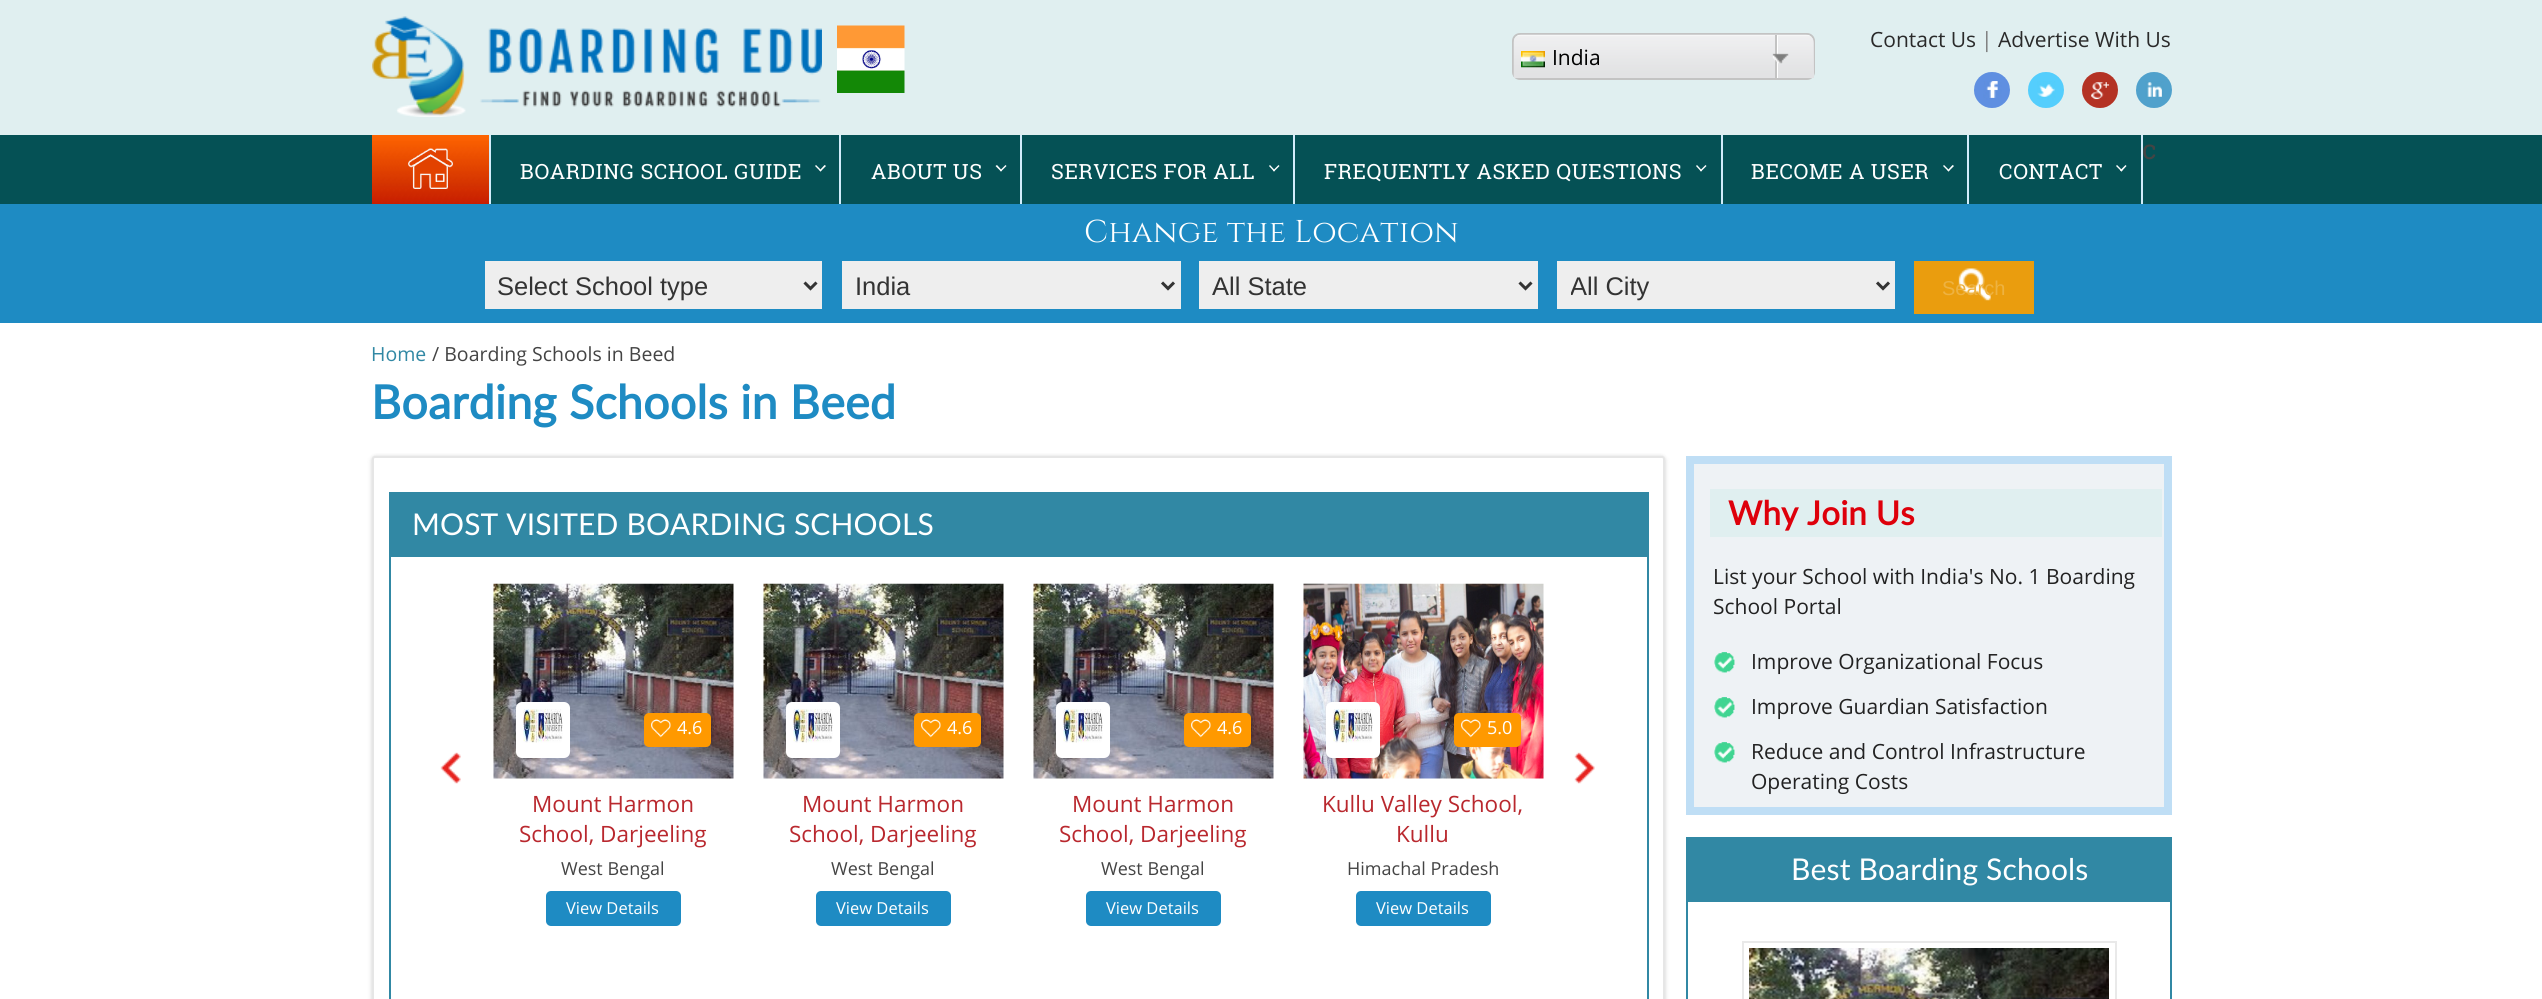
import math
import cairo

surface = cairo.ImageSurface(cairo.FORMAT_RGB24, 2542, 999)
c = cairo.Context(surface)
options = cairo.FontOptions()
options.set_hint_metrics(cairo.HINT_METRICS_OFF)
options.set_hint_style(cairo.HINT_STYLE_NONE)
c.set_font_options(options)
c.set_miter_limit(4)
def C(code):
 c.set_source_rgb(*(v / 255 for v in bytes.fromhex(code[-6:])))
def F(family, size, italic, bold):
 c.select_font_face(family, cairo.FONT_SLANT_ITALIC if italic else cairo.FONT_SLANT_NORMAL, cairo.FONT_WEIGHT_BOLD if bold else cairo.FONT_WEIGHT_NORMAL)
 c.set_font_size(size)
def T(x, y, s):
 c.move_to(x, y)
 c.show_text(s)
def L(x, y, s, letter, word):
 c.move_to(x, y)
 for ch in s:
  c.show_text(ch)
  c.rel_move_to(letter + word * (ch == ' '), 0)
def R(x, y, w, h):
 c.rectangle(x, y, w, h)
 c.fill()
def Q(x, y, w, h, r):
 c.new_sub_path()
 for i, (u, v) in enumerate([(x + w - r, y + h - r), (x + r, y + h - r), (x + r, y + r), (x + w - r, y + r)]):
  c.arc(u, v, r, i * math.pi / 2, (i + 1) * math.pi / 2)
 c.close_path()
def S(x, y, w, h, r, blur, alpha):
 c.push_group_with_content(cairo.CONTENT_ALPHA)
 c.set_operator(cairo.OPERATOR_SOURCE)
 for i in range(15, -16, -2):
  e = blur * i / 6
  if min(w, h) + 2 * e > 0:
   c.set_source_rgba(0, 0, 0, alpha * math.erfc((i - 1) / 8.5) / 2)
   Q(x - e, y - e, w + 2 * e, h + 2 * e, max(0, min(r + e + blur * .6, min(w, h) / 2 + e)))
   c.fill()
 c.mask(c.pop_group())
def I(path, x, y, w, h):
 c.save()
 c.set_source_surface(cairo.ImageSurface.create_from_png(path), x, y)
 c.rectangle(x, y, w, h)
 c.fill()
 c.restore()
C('ffffff')
c.paint()
C('e0eff0')
R(0,0,2542,135)
I('1.png',372,16,450,101)
I('2.png',837,25,68,68)
F('Open Sans',21,0,0)
C('2a2a2a')
T(1870,47,'Contact Us')
C('7b7b7b')
T(1981,47,'|')
C('2a2a2a')
T(1998,47,'Advertise With Us')
I('3.png',1974,72,36,36)
I('4.png',2028,72,36,36)
I('5.png',2082,72,36,36)
I('6.png',2136,72,36,36)
Q(1513,34,301,45,7)
C('c3c3c3')
c.stroke()
C('e2e2e4')
c.new_path()
c.move_to(1522,35)
c.line_to(1806,35)
c.curve_to(1810.5,35,1814,38.5,1814,43)
c.line_to(1814,78)
c.line_to(1514,78)
c.line_to(1514,43)
c.curve_to(1514,38.5,1517.5,35,1522,35)
c.close_path()
c.fill()
I('7.png',1513,34,300,42)
I('8.png',1521,51,24,17)
C('000000')
T(1552,65,'India')
C('ffffff')
R(1777,35,1,43)
C('c3c3c3')
R(1775,35,2,43)
I('9.png',1772,53,17,11)
C('055155')
R(0,135,2542,69)
I('10.png',372,135,117,69)
C('d2ecfb')
R(489,135,2,69)
I('11.png',408,148,45,41)
F('Roboto Slab',27,0,0)
C('444444')
T(2142,159,'c')
C('d2ecfb')
R(839,135,2,69)
F('Roboto Slab',21,0,0)
C('ffffff')
L(520,179,'BOARDING SCHOOL GUIDE',.6,0)
c.new_path()
c.move_to(824.5,165)
c.line_to(826,166)
c.line_to(820.5,171.5)
c.line_to(819.5,170.5)
c.close_path()
c.fill()
c.new_path()
c.move_to(816,165)
c.line_to(821.5,170.5)
c.line_to(820.5,171.5)
c.line_to(815,166)
c.close_path()
c.fill()
C('d2ecfb')
R(1020,135,2,69)
C('ffffff')
L(871,179,'ABOUT US',.6,0)
c.new_path()
c.move_to(1005.5,165)
c.line_to(1006.5,166)
c.line_to(1001,171.5)
c.line_to(1000,170.5)
c.close_path()
c.fill()
c.new_path()
c.move_to(997,165)
c.line_to(1002,170.5)
c.line_to(1001,171.5)
c.line_to(995.5,166)
c.close_path()
c.fill()
C('d2ecfb')
R(1293,135,2,69)
C('ffffff')
L(1051,179,'SERVICES FOR ALL',.6,0)
c.new_path()
c.move_to(1278.5,165)
c.line_to(1279.5,166)
c.line_to(1274,171.5)
c.line_to(1273,170.5)
c.close_path()
c.fill()
c.new_path()
c.move_to(1270,165)
c.line_to(1275,170.5)
c.line_to(1274,171.5)
c.line_to(1269,166)
c.close_path()
c.fill()
C('d2ecfb')
R(1721,135,2,69)
C('ffffff')
L(1324,179,'FREQUENTLY ASKED QUESTIONS',.6,0)
c.new_path()
c.move_to(1705.5,165)
c.line_to(1706.5,166)
c.line_to(1701,171.5)
c.line_to(1700,170.5)
c.close_path()
c.fill()
c.new_path()
c.move_to(1697,165)
c.line_to(1702,170.5)
c.line_to(1701,171.5)
c.line_to(1696,166)
c.close_path()
c.fill()
C('d2ecfb')
R(1967,135,2,69)
C('ffffff')
L(1751,179,'BECOME A USER',.6,0)
c.new_path()
c.move_to(1952.5,165)
c.line_to(1954,166)
c.line_to(1948.5,171.5)
c.line_to(1947.5,170.5)
c.close_path()
c.fill()
c.new_path()
c.move_to(1944,165)
c.line_to(1949.5,170.5)
c.line_to(1948.5,171.5)
c.line_to(1943,166)
c.close_path()
c.fill()
C('d2ecfb')
R(2141,135,2,69)
C('ffffff')
L(1999,179,'CONTACT',.6,0)
c.new_path()
c.move_to(2125.5,165)
c.line_to(2126.5,166)
c.line_to(2121.5,171.5)
c.line_to(2120,170.5)
c.close_path()
c.fill()
c.new_path()
c.move_to(2117,165)
c.line_to(2122.5,170.5)
c.line_to(2121.5,171.5)
c.line_to(2116,166)
c.close_path()
c.fill()
C('1e8bc3')
R(0,204,2542,119)
F('Cinzel',31.5,0,0)
C('ffffff')
L(1084,242,'Change the Location',.2,0)
C('eeeeee')
R(485,261,337,48)
c.new_path()
c.move_to(804.5,282.5)
c.line_to(810.5,288.5)
c.line_to(816.5,282.5)
C('333333')
c.set_line_width(3)
c.stroke()
F('Liberation Sans',25.5,0,0)
T(497,295,'Select School type')
C('eeeeee')
R(842,261,339,48)
c.new_path()
c.move_to(1162,282.5)
c.line_to(1168,288.5)
c.line_to(1174,282.5)
C('333333')
c.stroke()
T(855,295,'India')
C('eeeeee')
R(1199,261,339,48)
c.new_path()
c.move_to(1519.5,282.5)
c.line_to(1525.5,288.5)
c.line_to(1531.5,282.5)
C('333333')
c.stroke()
T(1212,295,'All State')
C('eeeeee')
R(1557,261,338,48)
c.new_path()
c.move_to(1877,282.5)
c.line_to(1883,288.5)
c.line_to(1889,282.5)
C('333333')
c.stroke()
c.save()
c.rectangle(1571,272,300,31)
c.clip()
T(1570,295,'All City')
c.restore()
C('ea9d0e')
R(1914,261,120,53)
I('12.png',1958,268,33,33)
F('Liberation Sans',20,0,0)
C('eeb241')
T(1942,295,'Search')
F('Open Sans',19.5,0,0)
C('3188a4')
T(371,361,'Home')
C('444444')
T(432,361,'/ Boarding Schools in Beed')
F('Lato',46.5,0,1)
C('1e8bc3')
L(371,419,'Boarding Schools in Beed',.25,0)
C('000000')
S(372,456,1293,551,3,1.5,.1)
S(372,458,1293,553,3,3,.1)
C('ffffff')
Q(373,457,1291,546,2)
c.fill_preserve()
C('e6e6e6')
c.set_line_width(2)
c.stroke()
c.rectangle(390,493,1258,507)
C('3188a4')
c.stroke()
R(391,494,1256,63)
F('Lato',30,0,0)
C('ffffff')
L(412,535,'MOST VISITED BOARDING SCHOOLS',.15,0)
I('13.png',440,752,21,32)
I('14.png',493,583,241,196)
Q(516,702,54,56,6)
c.fill()
I('15.png',523,709,40,34)
C('ff9900')
Q(644,713,67,34,5)
c.fill()
I('16.png',651,719,20,19)
F('Open Sans',18,0,0)
C('ffffff')
T(677,734,'4.6')
F('Open Sans',22.5,0,0)
C('b9282e')
T(532,812,'Mount Harmon')
T(519,842,'School, Darjeeling')
F('Open Sans',18,0,0)
C('444444')
T(561,875,'West Bengal')
C('1e8bc3')
Q(546,891,135,35,5)
c.fill()
F('Open Sans',16.5,0,0)
C('ffffff')
T(566,914,'View Details')
I('17.png',763,583,241,196)
Q(786,702,54,56,6)
c.fill()
I('15.png',793,709,40,34)
C('ff9900')
Q(914,713,67,34,5)
c.fill()
I('16.png',921,719,20,19)
F('Open Sans',18,0,0)
C('ffffff')
T(947,734,'4.6')
F('Open Sans',22.5,0,0)
C('b9282e')
T(802,812,'Mount Harmon')
T(789,842,'School, Darjeeling')
F('Open Sans',18,0,0)
C('444444')
T(831,875,'West Bengal')
C('1e8bc3')
Q(816,891,135,35,5)
c.fill()
F('Open Sans',16.5,0,0)
C('ffffff')
T(836,914,'View Details')
I('18.png',1033,583,241,196)
Q(1056,702,54,56,6)
c.fill()
I('15.png',1063,709,40,34)
C('ff9900')
Q(1184,713,67,34,5)
c.fill()
I('16.png',1191,719,20,19)
F('Open Sans',18,0,0)
C('ffffff')
T(1217,734,'4.6')
F('Open Sans',22.5,0,0)
C('b9282e')
T(1072,812,'Mount Harmon')
T(1059,842,'School, Darjeeling')
F('Open Sans',18,0,0)
C('444444')
T(1101,875,'West Bengal')
C('1e8bc3')
Q(1086,891,135,35,5)
c.fill()
F('Open Sans',16.5,0,0)
C('ffffff')
T(1106,914,'View Details')
I('19.png',1303,583,241,196)
Q(1326,702,54,56,6)
c.fill()
I('15.png',1333,709,40,34)
C('ff9900')
Q(1454,713,67,34,5)
c.fill()
I('16.png',1461,719,20,19)
F('Open Sans',18,0,0)
C('ffffff')
T(1487,734,'5.0')
F('Open Sans',22.5,0,0)
C('b9282e')
T(1322,812,'Kullu Valley School,')
T(1396,842,'Kullu')
F('Open Sans',18,0,0)
C('444444')
T(1347,875,'Himachal Pradesh')
C('1e8bc3')
Q(1356,891,135,35,5)
c.fill()
F('Open Sans',16.5,0,0)
C('ffffff')
T(1376,914,'View Details')
I('20.png',1574,752,21,32)
C('eef2f5')
c.rectangle(1690,460,478,351)
c.fill_preserve()
C('bfdef5')
c.set_line_width(8)
c.stroke()
C('e0eff0')
R(1710,489,452,48)
F('Lato',33,0,1)
C('de000b')
L(1728,525,'Why Join Us',.25,0)
F('Open Sans',21,0,0)
C('222222')
T(1713,584,'List your School with India\'s No. 1 Boarding')
T(1713,614,'School Portal')
I('21.png',1714,652,21,21)
T(1751,669,'Improve Organizational Focus')
I('21.png',1714,697,21,21)
T(1751,714,'Improve Guardian Satisfaction')
I('21.png',1714,742,21,21)
T(1751,759,'Reduce and Control Infrastructure')
T(1751,789,'Operating Costs')
c.rectangle(1687,838,484,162)
C('3188a4')
c.set_line_width(2)
c.stroke()
R(1688,839,482,63)
F('Lato',30,0,0)
C('ffffff')
L(1791,880,'Best Boarding Schools',.15,0)
c.rectangle(1743,942,373,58)
C('e9e9e9')
c.stroke()
I('22.png',1749,948,360,51)
surface.write_to_png('o.png')
